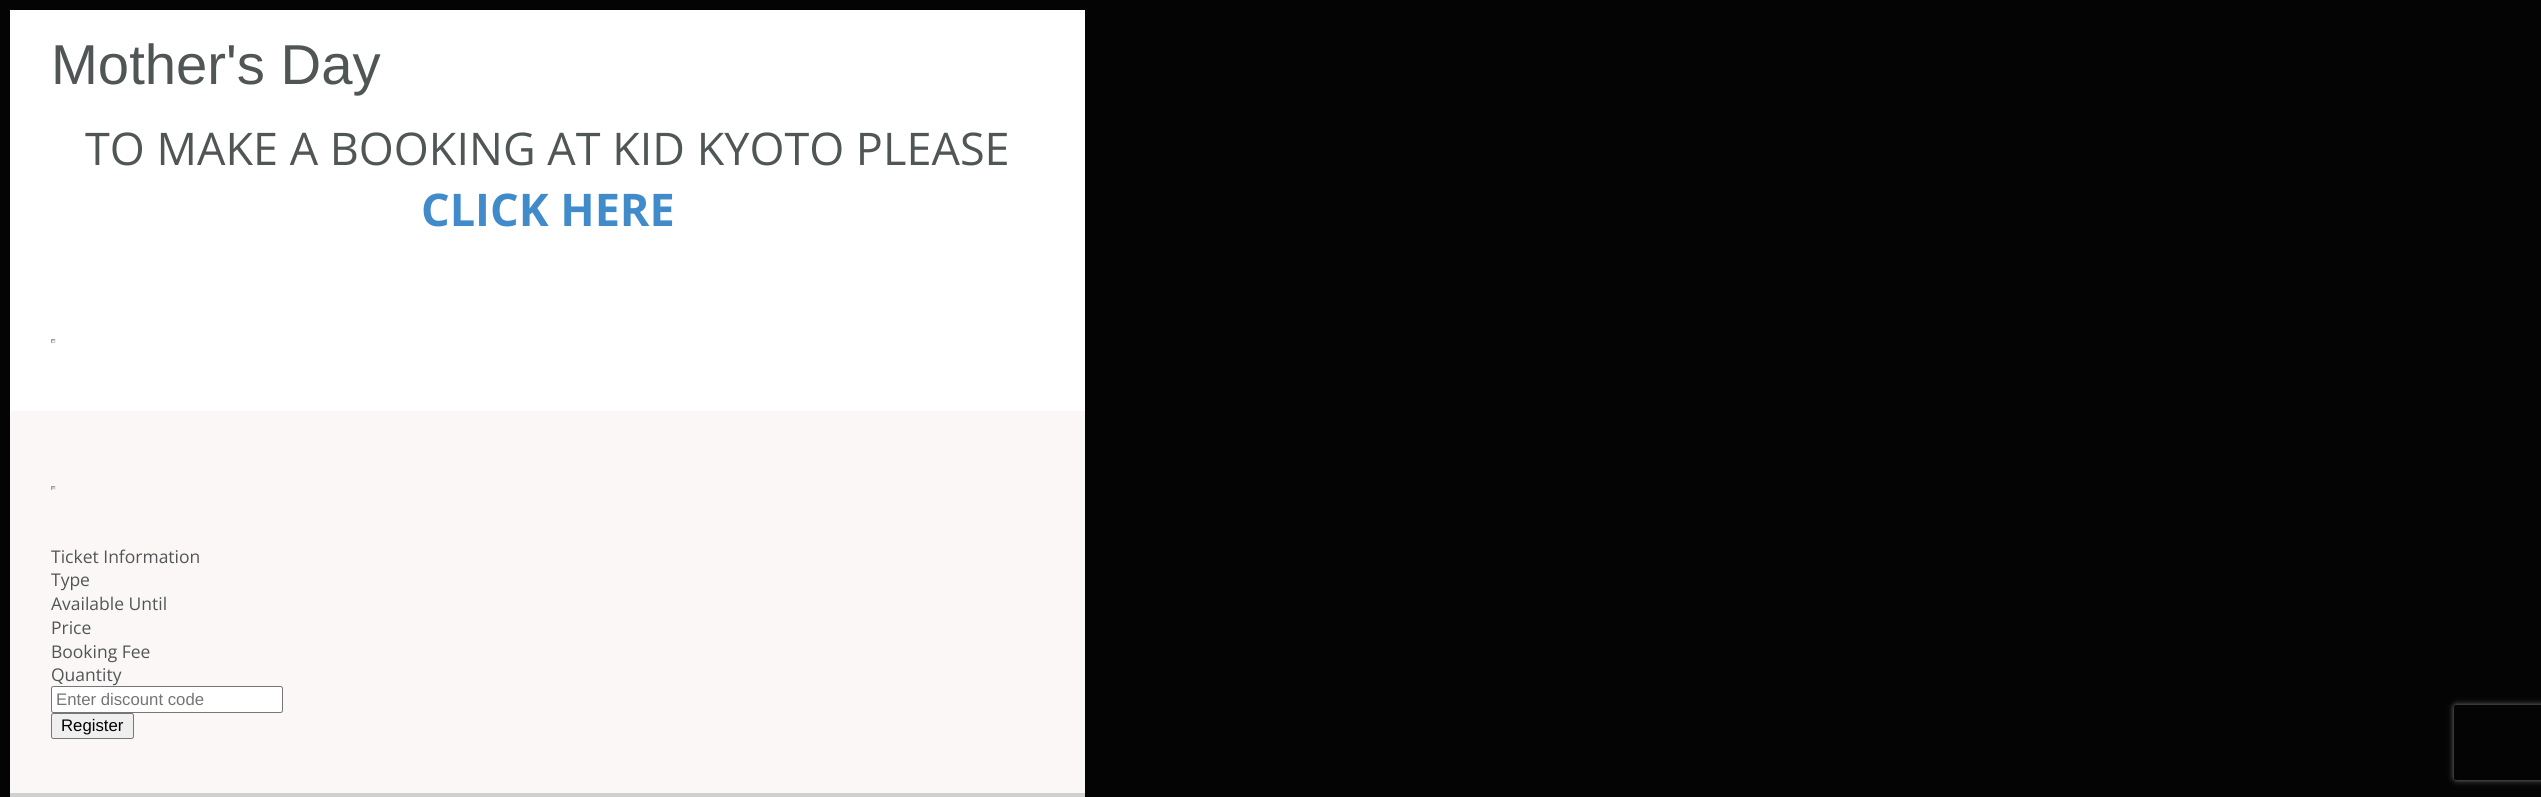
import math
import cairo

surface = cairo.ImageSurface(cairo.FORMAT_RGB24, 2541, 797)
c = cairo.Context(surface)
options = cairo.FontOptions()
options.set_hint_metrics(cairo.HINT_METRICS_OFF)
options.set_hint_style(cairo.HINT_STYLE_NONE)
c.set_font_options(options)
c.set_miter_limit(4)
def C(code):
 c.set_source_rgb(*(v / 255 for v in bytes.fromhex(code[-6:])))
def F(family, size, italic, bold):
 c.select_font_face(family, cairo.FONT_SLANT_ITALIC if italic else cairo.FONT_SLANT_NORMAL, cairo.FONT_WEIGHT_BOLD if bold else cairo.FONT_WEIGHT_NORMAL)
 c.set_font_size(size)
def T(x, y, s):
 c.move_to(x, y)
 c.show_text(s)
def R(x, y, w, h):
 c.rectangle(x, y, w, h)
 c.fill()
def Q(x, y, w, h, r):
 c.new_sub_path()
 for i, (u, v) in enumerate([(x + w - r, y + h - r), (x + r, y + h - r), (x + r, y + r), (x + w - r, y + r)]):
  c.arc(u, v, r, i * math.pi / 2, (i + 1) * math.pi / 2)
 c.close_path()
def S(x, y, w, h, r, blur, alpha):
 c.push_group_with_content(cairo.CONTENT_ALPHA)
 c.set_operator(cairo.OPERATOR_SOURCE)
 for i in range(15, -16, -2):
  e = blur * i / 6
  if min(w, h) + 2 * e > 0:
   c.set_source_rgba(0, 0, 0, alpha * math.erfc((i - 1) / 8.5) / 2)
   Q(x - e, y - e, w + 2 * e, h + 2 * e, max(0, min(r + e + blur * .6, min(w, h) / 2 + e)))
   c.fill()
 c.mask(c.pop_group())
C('040404')
c.paint()
C('ffffff')
R(10,10,1075,401)
F('Liberation Sans',56.25,0,0)
C('505656')
T(51,84,'Mother\'s Day')
F('Open Sans',45,0,0)
T(85,165,'TO MAKE A BOOKING AT KID KYOTO PLEASE')
F('Open Sans',45,0,1)
C('428bca')
T(421,226,'CLICK HERE')
C('cccccc')
R(51,340,5,3)
C('9f9f9f')
R(51,339,5,1)
C('eeeeee')
R(55,339,1,4)
R(51,341,5,1)
C('9f9f9f')
R(51,339,1,4)
C('fbf7f7')
R(10,411,1075,382)
C('cccccc')
R(51,487,5,2)
C('9f9f9f')
R(51,486,5,1)
C('eeeeee')
R(55,486,1,4)
R(51,489,5,1)
C('9f9f9f')
R(51,486,1,4)
F('Open Sans',17.5,0,0)
C('505656')
T(51,563,'Ticket Information')
T(51,586,'Type')
T(51,610,'Available Until')
T(51,634,'Price')
T(51,658,'Booking Fee')
T(51,681,'Quantity')
C('ffffff')
Q(51.5,686.5,231,26,2)
c.fill_preserve()
C('767676')
c.set_line_width(1)
c.stroke()
F('Liberation Sans',16.75,0,0)
C('757575')
T(56,705,'Enter discount code')
C('efefef')
Q(51.5,713.5,82,25,2)
c.fill_preserve()
C('767676')
c.stroke()
C('000000')
T(61,731,'Register')
C('d0d0d0')
R(10,793,1075,4)
c.save()
c.set_fill_rule(cairo.FILL_RULE_EVEN_ODD)
c.new_path()
c.move_to(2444,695)
c.line_to(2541,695)
c.line_to(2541,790)
c.line_to(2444,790)
c.close_path()
c.move_to(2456.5,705)
c.line_to(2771.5,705)
c.curve_to(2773,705,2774,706,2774,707.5)
c.line_to(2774,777.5)
c.curve_to(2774,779,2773,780,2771.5,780)
c.line_to(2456.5,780)
c.curve_to(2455,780,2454,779,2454,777.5)
c.line_to(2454,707.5)
c.curve_to(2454,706,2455,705,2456.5,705)
c.close_path()
c.clip()
C('808080')
S(2454,705,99,75,2.5,3,1)
c.restore()
surface.write_to_png('o.png')
